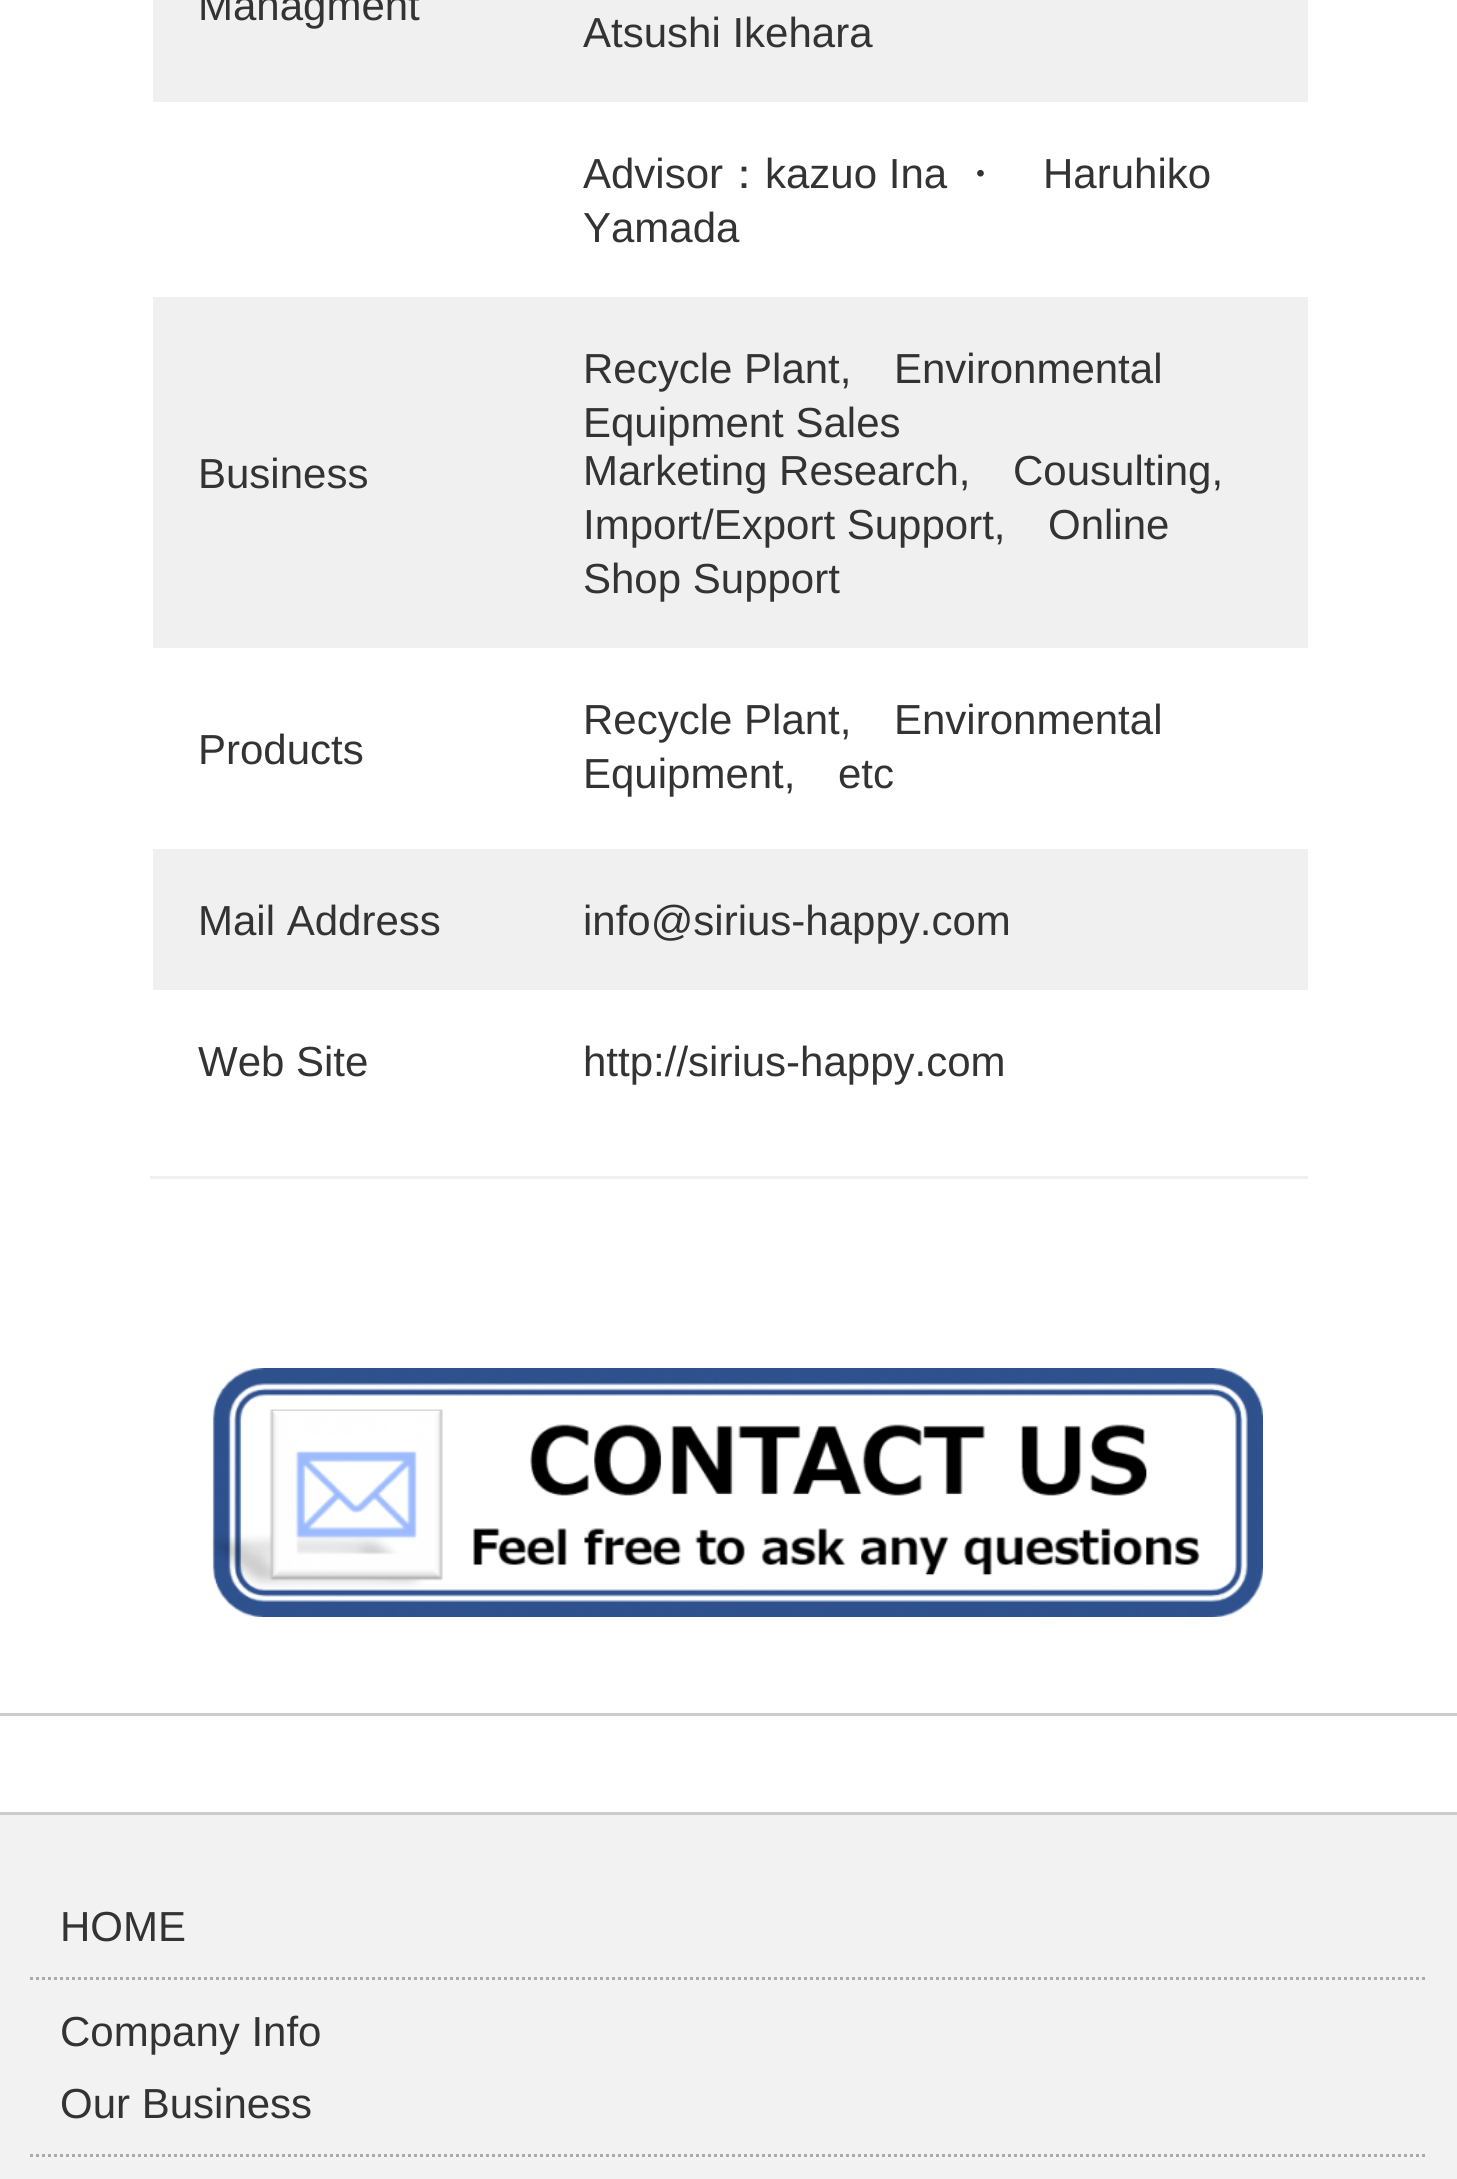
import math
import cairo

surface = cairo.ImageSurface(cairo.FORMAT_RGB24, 1457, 2179)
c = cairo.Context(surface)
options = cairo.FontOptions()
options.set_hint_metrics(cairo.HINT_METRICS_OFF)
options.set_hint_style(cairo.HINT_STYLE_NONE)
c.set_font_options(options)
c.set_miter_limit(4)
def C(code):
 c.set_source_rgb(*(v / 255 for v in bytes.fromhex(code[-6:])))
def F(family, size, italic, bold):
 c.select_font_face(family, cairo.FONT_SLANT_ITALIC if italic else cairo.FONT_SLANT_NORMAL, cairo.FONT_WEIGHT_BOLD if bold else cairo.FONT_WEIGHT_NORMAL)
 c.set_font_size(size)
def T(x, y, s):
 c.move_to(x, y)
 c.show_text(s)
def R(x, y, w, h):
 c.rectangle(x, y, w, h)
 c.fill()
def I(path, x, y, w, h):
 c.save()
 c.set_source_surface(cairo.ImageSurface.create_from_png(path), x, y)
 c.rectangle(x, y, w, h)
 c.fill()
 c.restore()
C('ffffff')
c.paint()
C('f0f0f0')
R(150,1176,1158,3)
R(153,0,1155,102)
F('Liberation Sans',42,0,0)
C('333333')
T(198,20,'Managment')
T(583,47,'Atsushi Ikehara')
T(583,188,'Advisor')
F('WenQuanYi Zen Hei Medium',42,0,0)
T(723,188,'：')
F('Liberation Sans',42,0,0)
T(765,188,'kazuo Ina')
F('WenQuanYi Zen Hei Medium',42,0,0)
T(959,188,'・')
F('Liberation Sans',42,0,0)
T(1043,188,'Haruhiko')
T(583,242,'Yamada')
C('f0f0f0')
R(153,297,1155,351)
C('333333')
T(198,488,'Business')
T(583,383,'Recycle Plant,')
T(894,383,'Environmental')
T(583,437,'Equipment Sales')
T(583,485,'Marketing Research,')
T(1013,485,'Cousulting,')
T(583,539,'Import/Export Support,')
T(1048,539,'Online')
T(583,593,'Shop Support')
T(198,764,'Products')
T(583,734,'Recycle Plant,')
T(894,734,'Environmental')
T(583,788,'Equipment,')
T(838,788,'etc')
C('f0f0f0')
R(153,849,1155,141)
C('333333')
T(198,935,'Mail Address')
T(583,935,'info@sirius-happy.com')
T(198,1076,'Web Site')
T(583,1076,'http://sirius-happy.com')
I('1.png',211,1368,1052,249)
C('cccccc')
R(0,1713,1457,3)
C('f2f2f2')
R(0,1815,1457,364)
C('cccccc')
R(0,1812,1457,3)
c.new_path()
c.move_to(30,1978.5)
c.line_to(1428,1978.5)
C('aaaaaa')
c.set_line_width(3)
c.set_dash([3,3])
c.stroke()
C('333333')
T(60,1941,'HOME')
T(60,2046,'Company Info')
c.new_path()
c.move_to(30,2155.5)
c.line_to(1428,2155.5)
C('aaaaaa')
c.stroke()
C('333333')
T(60,2118,'Our Business')
surface.write_to_png('o.png')
